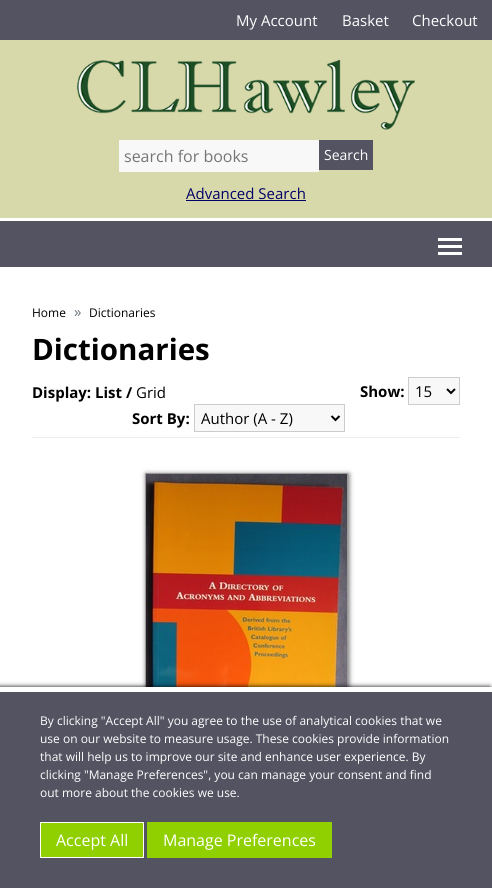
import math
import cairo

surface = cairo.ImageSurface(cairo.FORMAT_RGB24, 492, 888)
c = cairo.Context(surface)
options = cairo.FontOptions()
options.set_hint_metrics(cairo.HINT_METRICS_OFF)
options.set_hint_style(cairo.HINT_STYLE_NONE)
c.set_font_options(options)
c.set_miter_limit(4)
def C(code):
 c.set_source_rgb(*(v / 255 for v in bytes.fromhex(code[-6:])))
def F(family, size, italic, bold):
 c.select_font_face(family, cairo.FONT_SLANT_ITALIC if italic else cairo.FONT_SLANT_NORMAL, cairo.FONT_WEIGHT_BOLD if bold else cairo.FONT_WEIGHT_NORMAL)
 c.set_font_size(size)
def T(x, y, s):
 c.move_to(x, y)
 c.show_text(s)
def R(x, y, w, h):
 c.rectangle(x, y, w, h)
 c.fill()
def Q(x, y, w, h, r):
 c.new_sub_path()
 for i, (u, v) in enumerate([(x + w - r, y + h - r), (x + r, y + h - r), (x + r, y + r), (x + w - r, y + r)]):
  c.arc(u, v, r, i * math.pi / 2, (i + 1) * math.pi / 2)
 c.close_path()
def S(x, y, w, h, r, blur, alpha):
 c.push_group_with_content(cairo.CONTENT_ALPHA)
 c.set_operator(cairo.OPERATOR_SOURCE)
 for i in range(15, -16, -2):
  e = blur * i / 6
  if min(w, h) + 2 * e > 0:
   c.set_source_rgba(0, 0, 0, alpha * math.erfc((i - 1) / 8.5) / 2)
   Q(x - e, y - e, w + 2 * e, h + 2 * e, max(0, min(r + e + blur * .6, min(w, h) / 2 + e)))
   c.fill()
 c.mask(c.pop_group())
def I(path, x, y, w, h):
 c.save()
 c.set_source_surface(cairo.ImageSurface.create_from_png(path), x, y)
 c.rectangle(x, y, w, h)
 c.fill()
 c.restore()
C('d8d9ab')
c.paint()
C('535362')
R(0,0,492,40)
F('Open Sans',15,0,0)
C('ffffff')
T(236,26,'My Account')
T(342,26,'Basket')
T(412,26,'Checkout')
I('1.png',77,60,338,70)
C('f8f8f8')
R(119,140,200,32)
F('Open Sans',16,0,0)
C('757575')
T(124,162,'search for books')
C('535362')
R(319,140,54,30)
F('Open Sans',14,0,0)
C('ffffff')
T(324,160,'Search')
F('Open Sans',15,0,0)
C('000066')
T(186,199,'Advanced Search')
R(186,200,120,1)
C('535362')
R(0,221,492,46)
C('ffffff')
R(0,218,492,3)
R(0,267,492,420)
R(438,238,24,3)
R(438,245,24,3)
R(438,252,24,3)
F('Open Sans',12,0,0)
C('000000')
T(32,317,'Home')
F('Open Sans',15,0,0)
C('6c757d')
T(74,317,'»')
F('Open Sans',12,0,0)
C('000000')
T(89,317,'Dictionaries')
F('Open Sans',29.5,0,1)
T(32,360,'Dictionaries')
C('eeeeee')
R(32,437,428,1)
F('Open Sans',15,0,1)
C('000000')
T(32,398,'Display: List /')
F('Open Sans',15,0,0)
T(136,398,'Grid')
F('Open Sans',15,0,1)
T(360,397,'Show:')
C('f8f8f8')
c.rectangle(408.5,377.5,51,27)
c.fill_preserve()
C('cccccc')
c.set_line_width(1)
c.stroke()
c.new_path()
c.move_to(447,389)
c.line_to(451,393)
c.line_to(455,389)
C('000000')
c.set_line_width(2)
c.stroke()
F('Open Sans',15,0,0)
T(415,397,'15')
F('Open Sans',15,0,1)
T(132,424,'Sort By:')
C('f8f8f8')
c.rectangle(194.5,404.5,150,27)
c.fill_preserve()
C('cccccc')
c.set_line_width(1)
c.stroke()
c.new_path()
c.move_to(331.5,416)
c.line_to(335.5,420)
c.line_to(339.5,416)
C('000000')
c.set_line_width(2)
c.stroke()
F('Open Sans',15,0,0)
T(201,424,'Author (A - Z)')
C('666666')
S(146,474,203,252,0,2.5,1)
c.rectangle(145.5,473.5,202,251)
C('999999')
c.set_line_width(1)
c.stroke()
I('2.png',146,474,201,213)
C('000000')
S(-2,687,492,201,0,2.5,1)
C('535362')
R(0,692,492,196)
C('ffffff')
R(0,687,492,5)
F('Open Sans',12,0,0)
T(40,725,'By clicking "Accept All" you agree to the use of analytical cookies that we')
T(40,743,'use on our website to measure usage. These cookies provide information')
T(40,761,'that will help us to improve our site and enhance user experience. By')
T(40,779,'clicking "Manage Preferences", you can manage your consent and find')
T(40,797,'out more about the cookies we use.')
C('91d000')
c.rectangle(40.5,822.5,103,35)
c.fill_preserve()
C('ffffff')
c.stroke()
F('Open Sans',16,0,0)
T(56,846,'Accept All')
C('91d000')
R(147,822,185,36)
C('ffffff')
T(163,846,'Manage Preferences')
surface.write_to_png('o.png')
